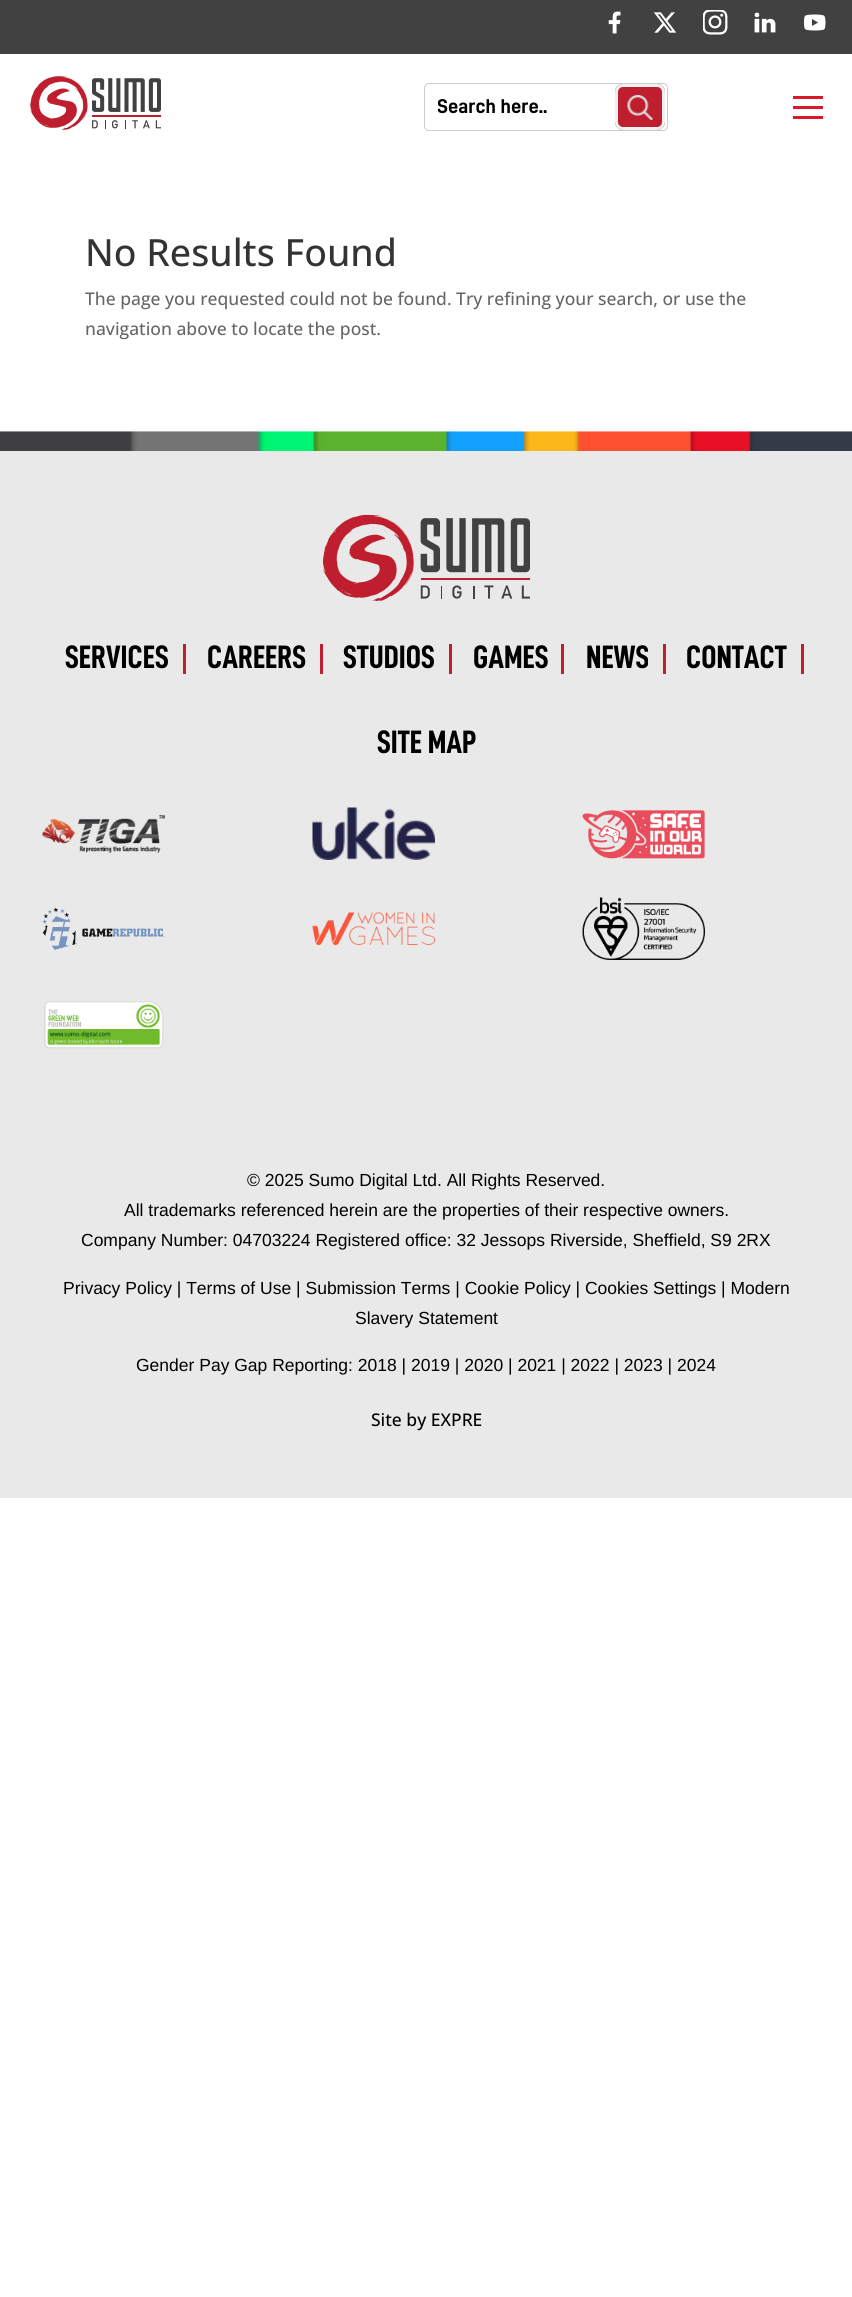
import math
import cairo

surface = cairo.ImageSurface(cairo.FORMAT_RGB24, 852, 2297)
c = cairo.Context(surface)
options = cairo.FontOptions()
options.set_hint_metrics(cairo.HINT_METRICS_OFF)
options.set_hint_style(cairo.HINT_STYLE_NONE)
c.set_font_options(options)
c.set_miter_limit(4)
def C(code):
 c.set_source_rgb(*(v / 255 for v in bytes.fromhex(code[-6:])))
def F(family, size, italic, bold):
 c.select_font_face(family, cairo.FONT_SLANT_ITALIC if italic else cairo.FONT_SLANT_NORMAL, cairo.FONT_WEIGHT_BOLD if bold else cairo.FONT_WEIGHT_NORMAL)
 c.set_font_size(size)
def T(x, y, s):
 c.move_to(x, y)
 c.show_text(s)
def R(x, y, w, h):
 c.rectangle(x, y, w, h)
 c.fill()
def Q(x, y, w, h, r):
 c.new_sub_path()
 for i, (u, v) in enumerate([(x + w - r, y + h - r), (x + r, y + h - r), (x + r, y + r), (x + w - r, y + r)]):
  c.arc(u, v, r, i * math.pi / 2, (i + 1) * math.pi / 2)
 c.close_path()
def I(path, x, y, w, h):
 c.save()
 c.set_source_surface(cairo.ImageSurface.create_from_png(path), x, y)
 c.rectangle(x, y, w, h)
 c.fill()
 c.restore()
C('ffffff')
c.paint()
C('424142')
R(0,0,852,54)
I('1.png',608,11,13,23)
I('2.png',653,12,24,21)
I('3.png',703,10,25,25)
I('4.png',754,12,22,21)
I('5.png',804,14,22,17)
I('6.png',30,76,131,54)
Q(424.5,83.5,243,47,4.5)
C('cccccc')
c.set_line_width(1)
c.stroke()
c.save()
c.rectangle(438,96,165,22)
c.clip()
F('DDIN',20,0,1)
C('000000')
T(437,113,'Search here..')
c.restore()
C('be1e2d')
Q(615,84,50,46,8)
c.fill()
I('7.png',627,95,26,25)
Q(616.5,85.5,47,43,6.5)
C('f0f0f0')
c.set_line_width(3)
c.stroke()
C('d91829')
R(793,106,30,3)
R(793,96,30,3)
R(793,116,30,3)
F('Open Sans Medium',37.5,0,0)
C('333333')
T(85,266,'No Results Found')
F('Open Sans Medium',17.5,0,0)
C('666666')
T(85,305,'The page you requested could not be found. Try refining your search, or use the')
T(85,335,'navigation above to locate the post.')
I('8.png',0,431,852,20)
C('e9e9e9')
R(0,451,852,1047)
I('9.png',323,514,207,87)
F('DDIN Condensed',32.5,0,1)
C('000000')
T(65,668,'SERVICES')
C('be1e2d')
R(183,644,3,30)
C('000000')
T(207,668,'CAREERS')
C('be1e2d')
R(320,644,3,30)
C('000000')
T(343,668,'STUDIOS')
C('be1e2d')
R(449,644,3,30)
C('000000')
T(473,668,'GAMES')
C('be1e2d')
R(561,644,3,30)
C('000000')
T(586,668,'NEWS')
C('be1e2d')
R(663,644,3,30)
C('000000')
T(686,668,'CONTACT')
C('be1e2d')
R(801,644,3,30)
C('000000')
T(377,753,'SITE MAP')
I('10.png',42,815,123,38)
I('11.png',312,807,123,53)
I('12.png',582,810,123,49)
I('13.png',42,907,123,43)
I('14.png',312,912,123,33)
I('15.png',582,897,123,63)
I('16.png',44,1001,120,48)
F('Liberation Sans',17.5,0,0)
T(247,1186,'© 2025 Sumo Digital Ltd. All Rights Reserved.')
T(124,1216,'All trademarks referenced herein are the properties of their respective owners.')
T(81,1246,'Company Number: 04703224 Registered office: 32 Jessops Riverside, Sheffield, S9 2RX')
T(63,1294,'Privacy Policy | Terms of Use | Submission Terms | Cookie Policy | Cookies Settings | Modern')
T(355,1324,'Slavery Statement')
T(136,1371,'Gender Pay Gap Reporting: 2018 | 2019 | 2020 | 2021 | 2022 | 2023 | 2024')
F('Open Sans Medium',17.5,0,0)
T(371,1426,'Site by EXPRE')
surface.write_to_png('o.png')
